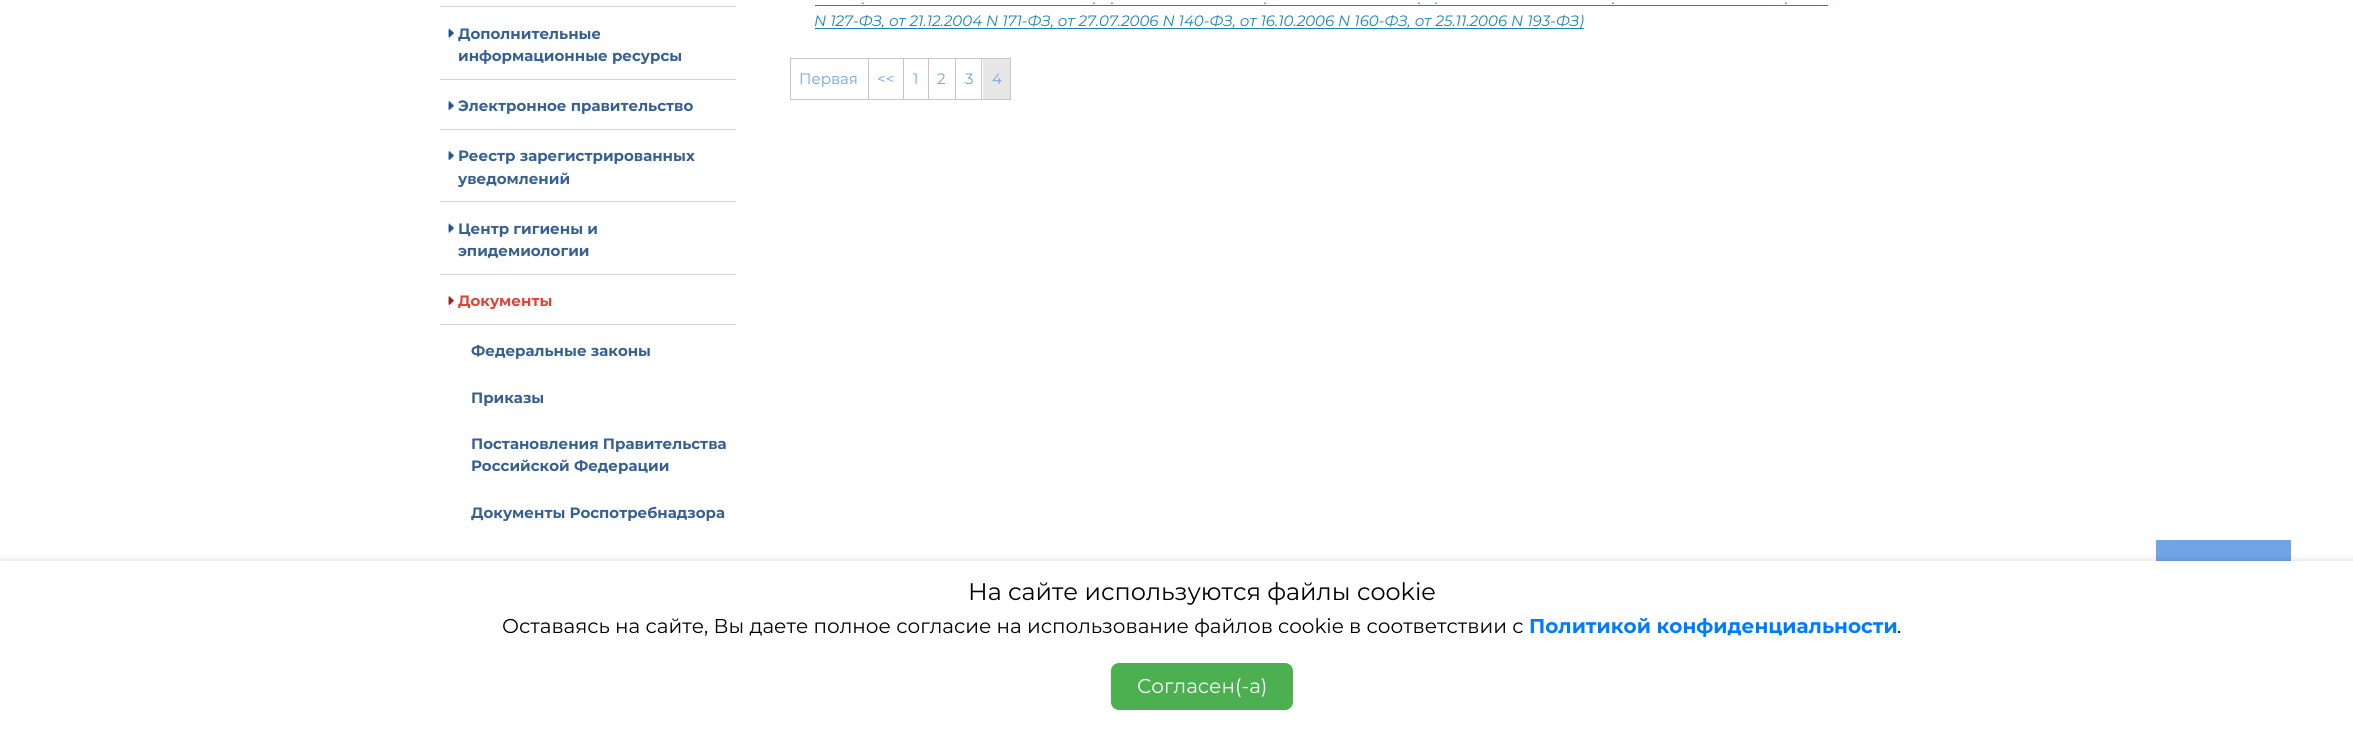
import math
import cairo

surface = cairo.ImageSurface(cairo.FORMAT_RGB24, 2353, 734)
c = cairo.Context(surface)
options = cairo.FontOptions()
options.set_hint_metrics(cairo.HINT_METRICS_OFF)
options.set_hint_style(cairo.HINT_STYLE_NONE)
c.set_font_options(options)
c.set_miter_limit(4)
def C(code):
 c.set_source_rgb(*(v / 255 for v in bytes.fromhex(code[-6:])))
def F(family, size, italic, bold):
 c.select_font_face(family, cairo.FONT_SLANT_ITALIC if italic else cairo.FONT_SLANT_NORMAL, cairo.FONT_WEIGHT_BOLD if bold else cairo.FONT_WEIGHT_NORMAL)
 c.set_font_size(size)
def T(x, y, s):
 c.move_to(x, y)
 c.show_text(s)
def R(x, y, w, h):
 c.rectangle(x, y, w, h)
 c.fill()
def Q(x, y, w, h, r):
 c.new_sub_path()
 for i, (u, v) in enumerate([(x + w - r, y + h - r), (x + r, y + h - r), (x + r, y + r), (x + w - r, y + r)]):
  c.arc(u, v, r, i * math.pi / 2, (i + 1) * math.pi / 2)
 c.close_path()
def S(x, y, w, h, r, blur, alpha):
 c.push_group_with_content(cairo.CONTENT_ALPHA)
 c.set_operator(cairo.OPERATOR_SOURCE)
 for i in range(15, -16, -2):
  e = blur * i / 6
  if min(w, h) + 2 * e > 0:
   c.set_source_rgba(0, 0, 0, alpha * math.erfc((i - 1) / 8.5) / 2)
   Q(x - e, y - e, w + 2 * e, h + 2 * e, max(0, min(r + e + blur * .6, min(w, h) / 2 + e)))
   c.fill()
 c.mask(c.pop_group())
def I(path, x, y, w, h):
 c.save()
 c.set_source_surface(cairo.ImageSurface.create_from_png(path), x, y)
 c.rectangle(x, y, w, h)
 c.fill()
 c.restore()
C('ffffff')
c.paint()
C('d4d4d4')
R(440,6,296,1)
I('1.png',448,28,6,10)
I('2.png',448,28,6,10)
R(440,79,296,1)
F('Montserrat',15,0,1)
C('376092')
T(458,39,'Дополнительные')
T(458,61,'информационные ресурсы')
I('3.png',448,101,6,9)
I('4.png',448,101,6,9)
C('d4d4d4')
R(440,129,296,1)
C('376092')
T(458,111,'Электронное правительство')
I('3.png',448,151,6,9)
I('4.png',448,151,6,9)
C('d4d4d4')
R(440,201,296,1)
C('376092')
T(458,161,'Реестр зарегистрированных')
T(458,184,'уведомлений')
I('1.png',448,223,6,10)
I('2.png',448,223,6,10)
C('d4d4d4')
R(440,274,296,1)
C('376092')
T(458,234,'Центр гигиены и')
T(458,256,'эпидемиологии')
I('3.png',448,296,6,9)
I('5.png',448,296,6,9)
C('d4d4d4')
R(440,324,296,1)
C('e44235')
T(458,306,'Документы')
C('376092')
T(471,356,'Федеральные законы')
T(471,403,'Приказы')
T(471,449,'Постановления Правительства')
T(471,471,'Российской Федерации')
T(471,518,'Документы Роспотребнадзора')
F('Montserrat',15,1,0)
C('1d85b3')
T(862,4,'.')
R(815,5,1013,1)
T(1093,4,'.')
T(1111,4,'.')
T(1264,4,'.')
T(1418,4,'.')
T(1435,4,'.')
T(1612,4,'.')
T(1785,4,'.')
R(815,28,769,1)
T(814,26,'N 127-ФЗ, от 21.12.2004 N 171-ФЗ, от 27.07.2006 N 140-ФЗ, от 16.10.2006 N 160-ФЗ, от 25.11.2006 N 193-ФЗ)')
C('c7c7c7')
R(790,58,1,42)
R(791,58,220,1)
R(868,58,1,42)
R(791,99,78,1)
F('Montserrat',15,0,0)
C('6fa4e6')
T(799,84,'Первая')
C('c7c7c7')
R(903,58,1,42)
R(869,99,35,1)
C('6fa4e6')
T(877,84,'<<')
C('c7c7c7')
R(928,58,1,42)
R(904,99,25,1)
C('6fa4e6')
T(913,84,'1')
C('c7c7c7')
R(955,58,1,42)
R(929,99,27,1)
C('6fa4e6')
T(937,84,'2')
C('c7c7c7')
R(981,58,1,42)
R(956,99,27,1)
C('6fa4e6')
T(965,84,'3')
C('e7e7e7')
R(983,59,27,40)
C('c7c7c7')
R(1010,58,1,42)
R(983,99,28,1)
C('6fa4e6')
T(992,84,'4')
R(2156,540,135,21)
C('000000')
S(0,559,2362,174,0,3,.1)
C('ffffff')
R(0,561,2353,173)
F('Montserrat',24,0,0)
C('000000')
T(968,600,'На сайте используются файлы cookie')
F('Montserrat',20,0,0)
T(502,633,'Оставаясь на сайте, Вы даете полное согласие на использование файлов cookie в соответствии с')
F('Montserrat',20,0,1)
C('007bff')
T(1529,633,'Политикой конфиденциальности')
F('Montserrat',20,0,0)
C('000000')
T(1897,633,'.')
C('4caf50')
Q(1111,663,182,47,8)
c.fill()
C('ffffff')
T(1137,693,'Согласен(-а)')
surface.write_to_png('o.png')
